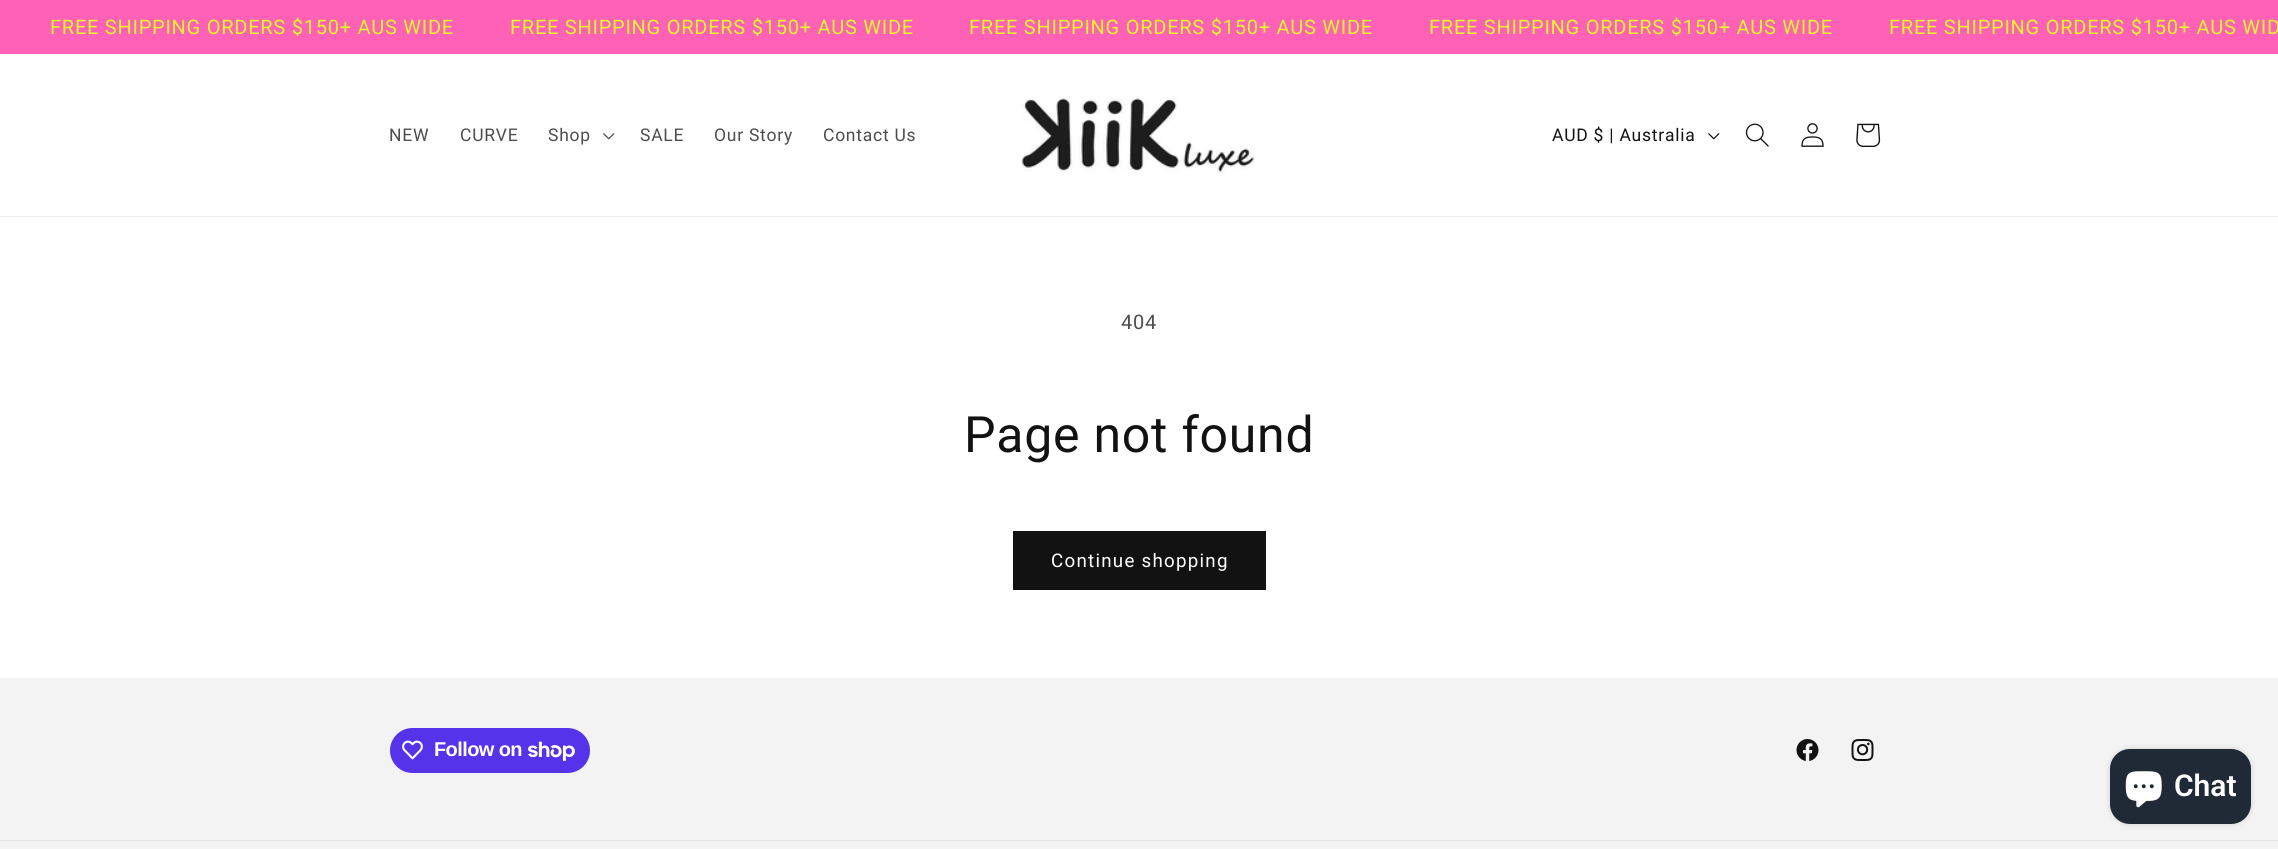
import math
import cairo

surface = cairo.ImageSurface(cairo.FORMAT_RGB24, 2278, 849)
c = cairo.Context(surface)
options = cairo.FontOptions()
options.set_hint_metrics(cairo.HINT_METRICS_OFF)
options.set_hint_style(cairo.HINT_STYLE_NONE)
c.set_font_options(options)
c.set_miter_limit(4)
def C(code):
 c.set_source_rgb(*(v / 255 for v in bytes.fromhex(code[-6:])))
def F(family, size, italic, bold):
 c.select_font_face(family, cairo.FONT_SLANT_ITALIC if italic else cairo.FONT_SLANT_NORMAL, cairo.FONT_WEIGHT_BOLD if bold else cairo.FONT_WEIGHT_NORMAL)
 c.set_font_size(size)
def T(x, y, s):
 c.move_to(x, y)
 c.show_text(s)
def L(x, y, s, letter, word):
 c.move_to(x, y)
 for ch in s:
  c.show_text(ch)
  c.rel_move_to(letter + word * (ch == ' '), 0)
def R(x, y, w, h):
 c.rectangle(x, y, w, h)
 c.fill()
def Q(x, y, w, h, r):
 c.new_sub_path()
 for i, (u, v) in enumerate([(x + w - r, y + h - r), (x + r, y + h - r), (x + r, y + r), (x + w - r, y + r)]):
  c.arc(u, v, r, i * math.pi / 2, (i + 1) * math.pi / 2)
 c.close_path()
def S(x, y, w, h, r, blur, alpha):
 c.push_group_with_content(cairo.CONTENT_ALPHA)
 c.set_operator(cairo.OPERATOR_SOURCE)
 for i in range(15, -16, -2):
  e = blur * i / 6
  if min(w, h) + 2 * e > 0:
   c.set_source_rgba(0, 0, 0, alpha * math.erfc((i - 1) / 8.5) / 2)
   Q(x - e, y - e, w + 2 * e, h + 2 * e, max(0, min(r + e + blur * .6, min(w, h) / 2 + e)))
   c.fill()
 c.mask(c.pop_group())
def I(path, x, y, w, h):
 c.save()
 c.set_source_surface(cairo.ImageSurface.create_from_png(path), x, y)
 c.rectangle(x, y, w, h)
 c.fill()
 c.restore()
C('ffffff')
c.paint()
C('ff61b6')
R(0,0,2278,54)
F('Roboto',20,0,0)
C('e7f727')
L(50,34,'FREE SHIPPING ORDERS $150+ AUS WIDE',.75,0)
L(510,34,'FREE SHIPPING ORDERS $150+ AUS WIDE',.75,0)
L(969,34,'FREE SHIPPING ORDERS $150+ AUS WIDE',.75,0)
L(1429,34,'FREE SHIPPING ORDERS $150+ AUS WIDE',.75,0)
L(1889,34,'FREE SHIPPING ORDERS $150+ AUS WID',.75,0)
C('ececec')
R(0,216,2278,1)
F('Roboto',17.5,0,0)
C('4d4d4d')
L(389,141,'NEW',.75,0)
L(460,141,'CURVE',.75,0)
L(548,141,'Shop',.75,0)
I('1.png',603,133,12,7)
L(640,141,'SALE',.75,0)
L(714,141,'Our Story',.75,0)
L(823,141,'Contact Us',.75,0)
I('2.png',1021,96,234,78)
C('121212')
L(1552,141,'AUD $ | Australia',.75,0)
I('3.png',1708,133,12,7)
I('4.png',1745,123,24,24)
I('5.png',1801,123,23,24)
I('6.png',1856,123,25,24)
F('Roboto',20,0,0)
C('4d4d4d')
L(1121,329,'404',.75,0)
F('Roboto',50,0,0)
C('121212')
L(964,452,'Page not found',.75,0)
R(1013,531,253,59)
F('Roboto',18.75,0,0)
C('ffffff')
L(1051,567,'Continue shopping',1.25,0)
C('f3f3f3')
R(0,678,2278,171)
C('5433eb')
Q(390,728,200,45,22.5)
c.fill()
I('7.png',402,740,21,20)
F('Liberation Sans',20,0,1)
C('ffffff')
L(434,756,'Follow on',-.6,0)
I('8.png',528,741,47,20)
I('9.png',1796,739,23,22)
I('10.png',1851,739,23,22)
C('e1e1e1')
R(0,840,2278,1)
C('000000')
S(2110,749,141,75,20,3,.15)
C('202a36')
Q(2110,749,141,75,20)
c.fill()
I('11.png',2125,771,37,37)
F('Roboto SemiBold',30,0,0)
C('ffffff')
T(2174,796,'Chat')
surface.write_to_png('o.png')
